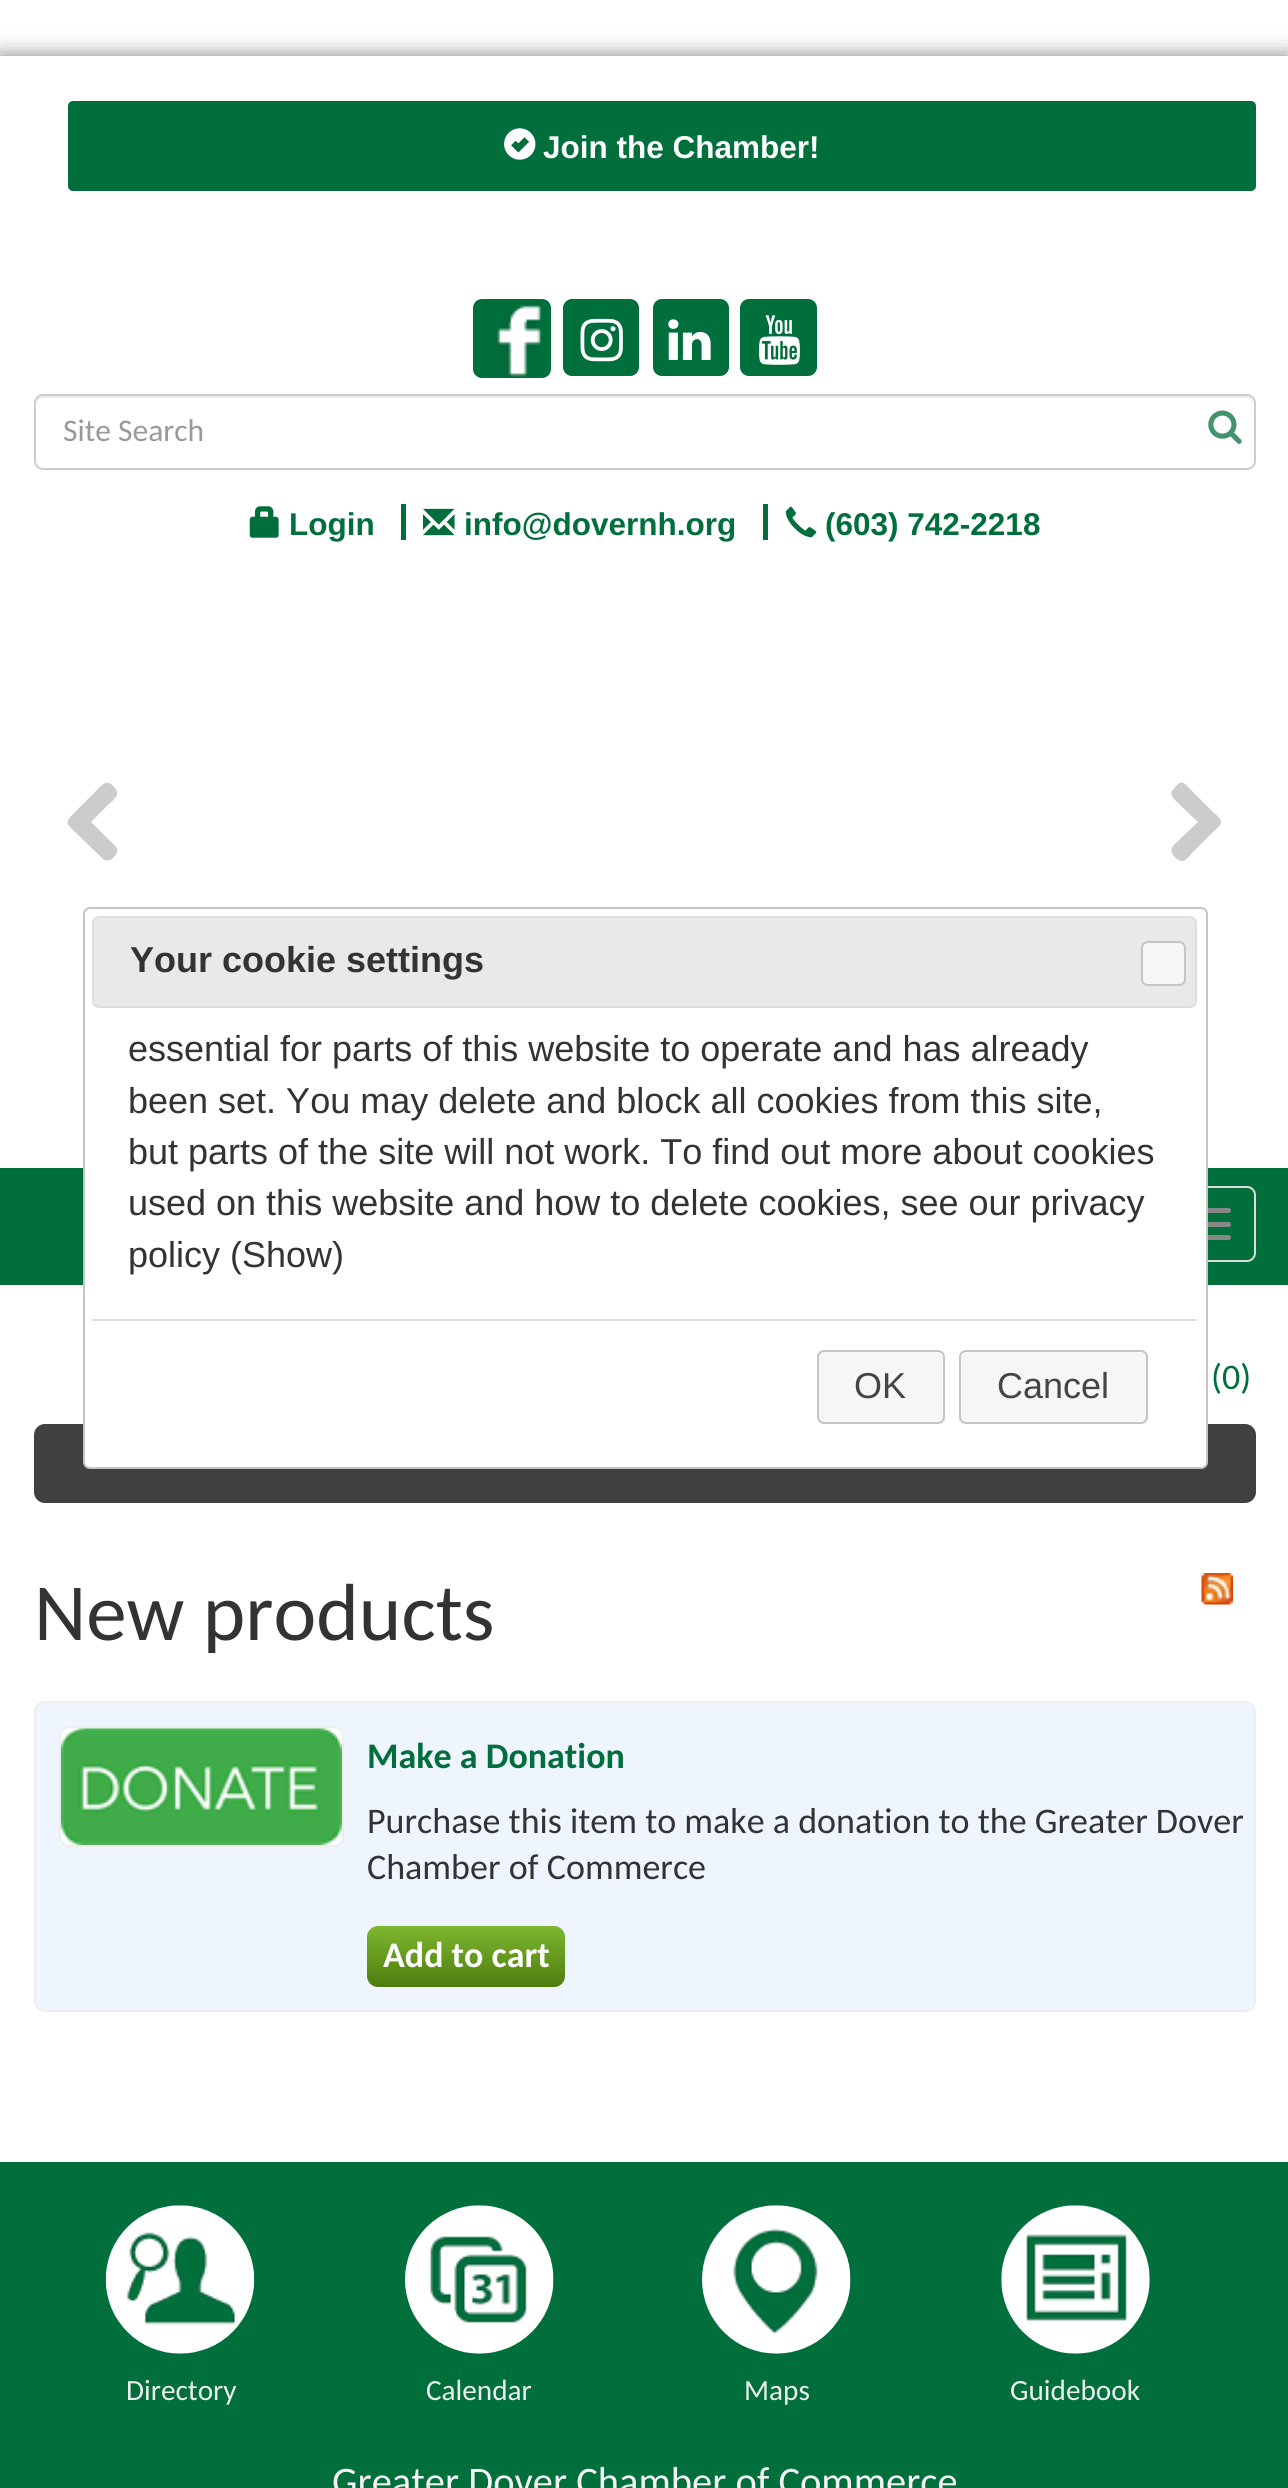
import math
import cairo

surface = cairo.ImageSurface(cairo.FORMAT_RGB24, 1288, 2488)
c = cairo.Context(surface)
options = cairo.FontOptions()
options.set_hint_metrics(cairo.HINT_METRICS_OFF)
options.set_hint_style(cairo.HINT_STYLE_NONE)
c.set_font_options(options)
c.set_miter_limit(4)
def C(code):
 c.set_source_rgb(*(v / 255 for v in bytes.fromhex(code[-6:])))
def F(family, size, italic, bold):
 c.select_font_face(family, cairo.FONT_SLANT_ITALIC if italic else cairo.FONT_SLANT_NORMAL, cairo.FONT_WEIGHT_BOLD if bold else cairo.FONT_WEIGHT_NORMAL)
 c.set_font_size(size)
def T(x, y, s):
 c.move_to(x, y)
 c.show_text(s)
def R(x, y, w, h):
 c.rectangle(x, y, w, h)
 c.fill()
def Q(x, y, w, h, r):
 c.new_sub_path()
 for i, (u, v) in enumerate([(x + w - r, y + h - r), (x + r, y + h - r), (x + r, y + r), (x + w - r, y + r)]):
  c.arc(u, v, r, i * math.pi / 2, (i + 1) * math.pi / 2)
 c.close_path()
def S(x, y, w, h, r, blur, alpha):
 c.push_group_with_content(cairo.CONTENT_ALPHA)
 c.set_operator(cairo.OPERATOR_SOURCE)
 for i in range(15, -16, -2):
  e = blur * i / 6
  if min(w, h) + 2 * e > 0:
   c.set_source_rgba(0, 0, 0, alpha * math.erfc((i - 1) / 8.5) / 2)
   Q(x - e, y - e, w + 2 * e, h + 2 * e, max(0, min(r + e + blur * .6, min(w, h) / 2 + e)))
   c.fill()
 c.mask(c.pop_group())
def I(path, x, y, w, h):
 c.save()
 c.set_source_surface(cairo.ImageSurface.create_from_png(path), x, y)
 c.rectangle(x, y, w, h)
 c.fill()
 c.restore()
C('ffffff')
c.paint()
C('000000')
S(0,56,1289,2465,0,11,.5)
C('ffffff')
R(0,56,1288,2106)
C('006f3c')
Q(68,101,1188,90,5)
c.fill()
I('1.png',504,128,32,32)
F('Liberation Sans',31.5,0,1)
C('ffffff')
T(543,158,'Join the Chamber!')
C('006f3c')
Q(473,299,78,79,9)
c.fill()
I('2.png',494,305,47,73)
Q(564,300,74,75,8)
c.fill_preserve()
c.stroke()
I('3.png',580,318,43,44)
Q(654,300,74,75,8)
c.fill_preserve()
c.stroke()
I('4.png',668,319,43,41)
Q(741,300,75,75,8)
c.fill_preserve()
c.stroke()
I('5.png',759,315,41,50)
C('ececec')
c.new_path()
c.move_to(43,398)
c.line_to(1246,398)
c.curve_to(1250,398,1253,401,1253,405)
c.line_to(1253,403)
c.curve_to(1253,399,1250,396,1246,396)
c.line_to(43,396)
c.curve_to(39,396,36,399,36,403)
c.line_to(36,405)
c.curve_to(36,401,39,398,43,398)
c.close_path()
c.fill()
Q(35,395,1220,74,8)
C('cccccc')
c.stroke()
F('Carlito',31.5,0,0)
C('999999')
T(63,441,'Site Search')
I('6.png',1208,410,34,34)
I('7.png',249,506,30,32)
F('Liberation Sans',31.5,0,1)
C('006f3c')
T(289,535,'Login')
R(401,504,5,36)
I('8.png',423,508,32,28)
T(464,535,'info@dovernh.org')
R(763,504,5,36)
I('9.png',785,506,32,32)
T(825,535,'(603) 742-2218')
C('cccccc')
c.new_path()
c.move_to(103,859)
c.line_to(75,832)
c.curve_to(65,822,65,822,75,812)
c.line_to(97,790)
c.curve_to(100,787,105,780,111,784)
c.line_to(114,787)
c.curve_to(122,795,113,800,107,806)
c.line_to(91,822)
c.line_to(107,838)
c.curve_to(117,848,122,849,112,859)
c.curve_to(109,861,105,861,103,859)
c.close_path()
c.fill()
c.new_path()
c.move_to(1221,822)
c.curve_to(1221,826,1216,829,1213,832)
c.line_to(1191,854)
c.curve_to(1186,860,1183,864,1176,858)
c.curve_to(1174,857,1173,855,1172,853)
c.curve_to(1169,847,1178,842,1181,838)
c.line_to(1198,822)
c.line_to(1181,806)
c.curve_to(1178,802,1169,797,1172,791)
c.line_to(1176,786)
c.curve_to(1183,779,1185,784,1191,790)
c.line_to(1213,812)
c.curve_to(1216,815,1221,818,1221,822)
c.close_path()
c.fill()
C('006f3c')
R(0,1168,1288,117)
Q(1158,1187,97,74,8)
C('dddddd')
c.stroke()
C('888888')
Q(1181,1208,50,5,2.5)
c.fill()
Q(1181,1222,50,5,2.5)
c.fill()
Q(1181,1235,50,5,2.5)
c.fill()
F('Carlito',36,0,0)
C('006f3c')
T(1211,1389,'(0)')
C('404040')
Q(34,1424,1222,79,11)
c.fill()
F('Carlito',81,0,0)
C('333333')
T(34,1640,'New products')
I('10.png',1201,1573,32,32)
C('eef5ff')
Q(35,1702,1220,309,10)
c.fill_preserve()
C('eeeeee')
c.stroke()
Q(60,1727,283,119,10)
c.stroke()
C('ffffff')
Q(61,1728,281,117,9)
c.fill()
I('11.png',60,1728,282,118)
F('Carlito',36,0,1)
C('006f3c')
T(367,1768,'Make a Donation')
F('Carlito',36,0,0)
C('333333')
T(367,1833,'Purchase this item to make a donation to the Greater Dover')
T(367,1879,'Chamber of Commerce')
gradient = cairo.LinearGradient(367,1926,367,1987)
gradient.add_color_stop_rgba(0,0.49,0.718,0.184,1)
gradient.add_color_stop_rgba(1,0.306,0.49,0.055,1)
c.set_source(gradient)
Q(367,1926,198,61,11)
c.fill()
F('Carlito',36,0,1)
C('ffffff')
T(383,1967,'Add to cart')
C('006f3c')
R(0,2162,1288,326)
I('12.png',105,2205,150,149)
F('Carlito',29.25,0,0)
C('edf0ef')
T(126,2400,'Directory')
I('13.png',405,2205,149,149)
T(426,2400,'Calendar')
I('14.png',702,2205,149,149)
T(744,2400,'Maps')
I('15.png',1001,2205,149,149)
T(1010,2400,'Guidebook')
F('Carlito',40.5,0,0)
C('f4f4f4')
T(332,2495,'Greater Dover Chamber of Commerce')
C('ffffff')
Q(84,908,1123,560,6)
c.fill_preserve()
C('c5c5c5')
c.stroke()
C('e9e9e9')
Q(93,917,1103,90,6)
c.fill_preserve()
C('dddddd')
c.stroke()
F('Liberation Sans',36,0,1)
C('333333')
T(130,972,'Your cookie settings')
C('f6f6f6')
Q(1142,942,43,43,6)
c.fill_preserve()
C('c5c5c5')
c.stroke()
F('Liberation Sans',36,0,0)
C('333333')
T(128,1061,'essential for parts of this website to operate and has already')
T(128,1113,'been set. You may delete and block all cookies from this site,')
T(128,1164,'but parts of the site will not work. To find out more about cookies')
T(128,1215,'used on this website and how to delete cookies, see our privacy')
T(128,1267,'policy (Show)')
C('dddddd')
R(92,1319,1105,2)
C('f6f6f6')
Q(818,1351,126,72,6)
c.fill_preserve()
C('c5c5c5')
c.stroke()
C('454545')
T(854,1398,'OK')
C('f6f6f6')
Q(960,1351,187,72,6)
c.fill_preserve()
C('c5c5c5')
c.stroke()
C('454545')
T(997,1398,'Cancel')
surface.write_to_png('o.png')
